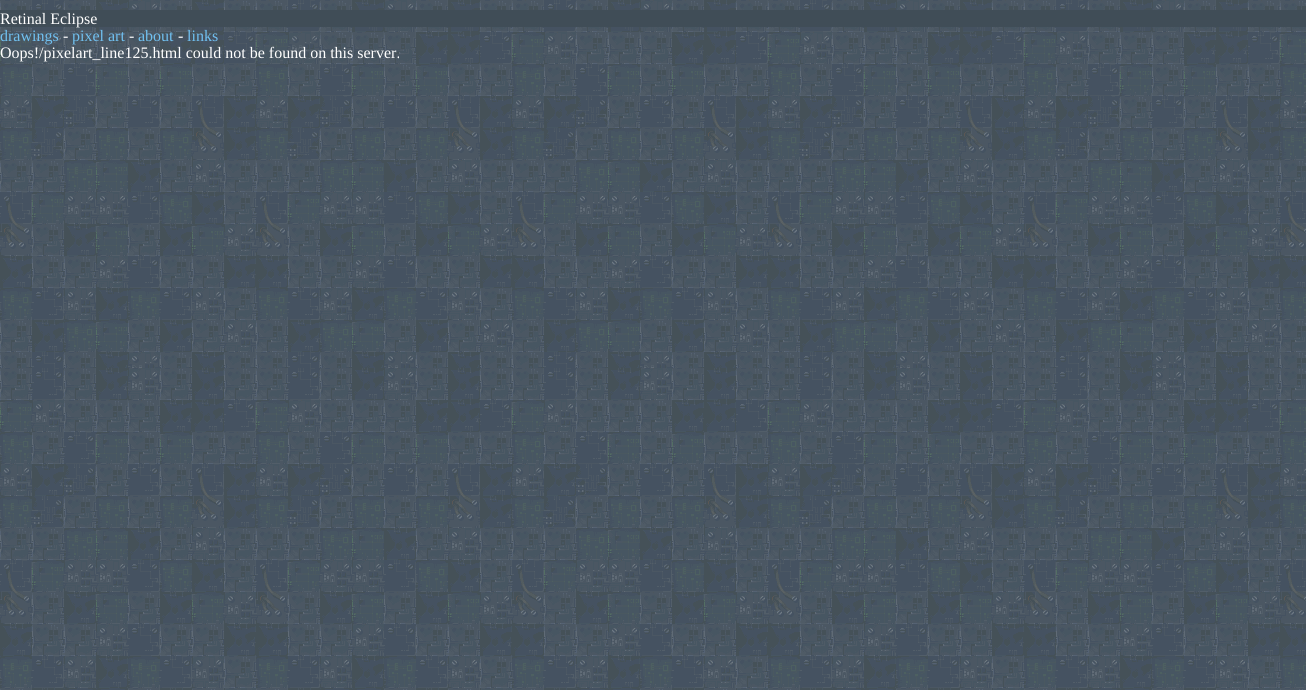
import math
import cairo

surface = cairo.ImageSurface(cairo.FORMAT_RGB24, 1306, 690)
c = cairo.Context(surface)
options = cairo.FontOptions()
options.set_hint_metrics(cairo.HINT_METRICS_OFF)
options.set_hint_style(cairo.HINT_STYLE_NONE)
c.set_font_options(options)
c.set_miter_limit(4)
def C(code):
 c.set_source_rgb(*(v / 255 for v in bytes.fromhex(code[-6:])))
def F(family, size, italic, bold):
 c.select_font_face(family, cairo.FONT_SLANT_ITALIC if italic else cairo.FONT_SLANT_NORMAL, cairo.FONT_WEIGHT_BOLD if bold else cairo.FONT_WEIGHT_NORMAL)
 c.set_font_size(size)
def T(x, y, s):
 c.move_to(x, y)
 c.show_text(s)
def R(x, y, w, h):
 c.rectangle(x, y, w, h)
 c.fill()
def I(path, x, y, w, h):
 c.save()
 c.set_source_surface(cairo.ImageSurface.create_from_png(path), x, y)
 c.rectangle(x, y, w, h)
 c.fill()
 c.restore()
C('ffffff')
c.paint()
I('1.png',0,0,1306,690)
C('404d57')
R(0,10,1306,17)
F('Liberation Serif',16,0,0)
C('ffffff')
T(0,24,'Retinal Eclipse')
C('70c0f0')
T(0,41,'drawings')
C('ffffff')
T(63,41,'-')
C('70c0f0')
T(72,41,'pixel art')
C('ffffff')
T(129,41,'-')
C('70c0f0')
T(138,41,'about')
C('ffffff')
T(178,41,'-')
C('70c0f0')
T(187,41,'links')
C('ffffff')
T(0,58,'Oops!/pixelart_line125.html could not be found on this server.')
surface.write_to_png('o.png')
